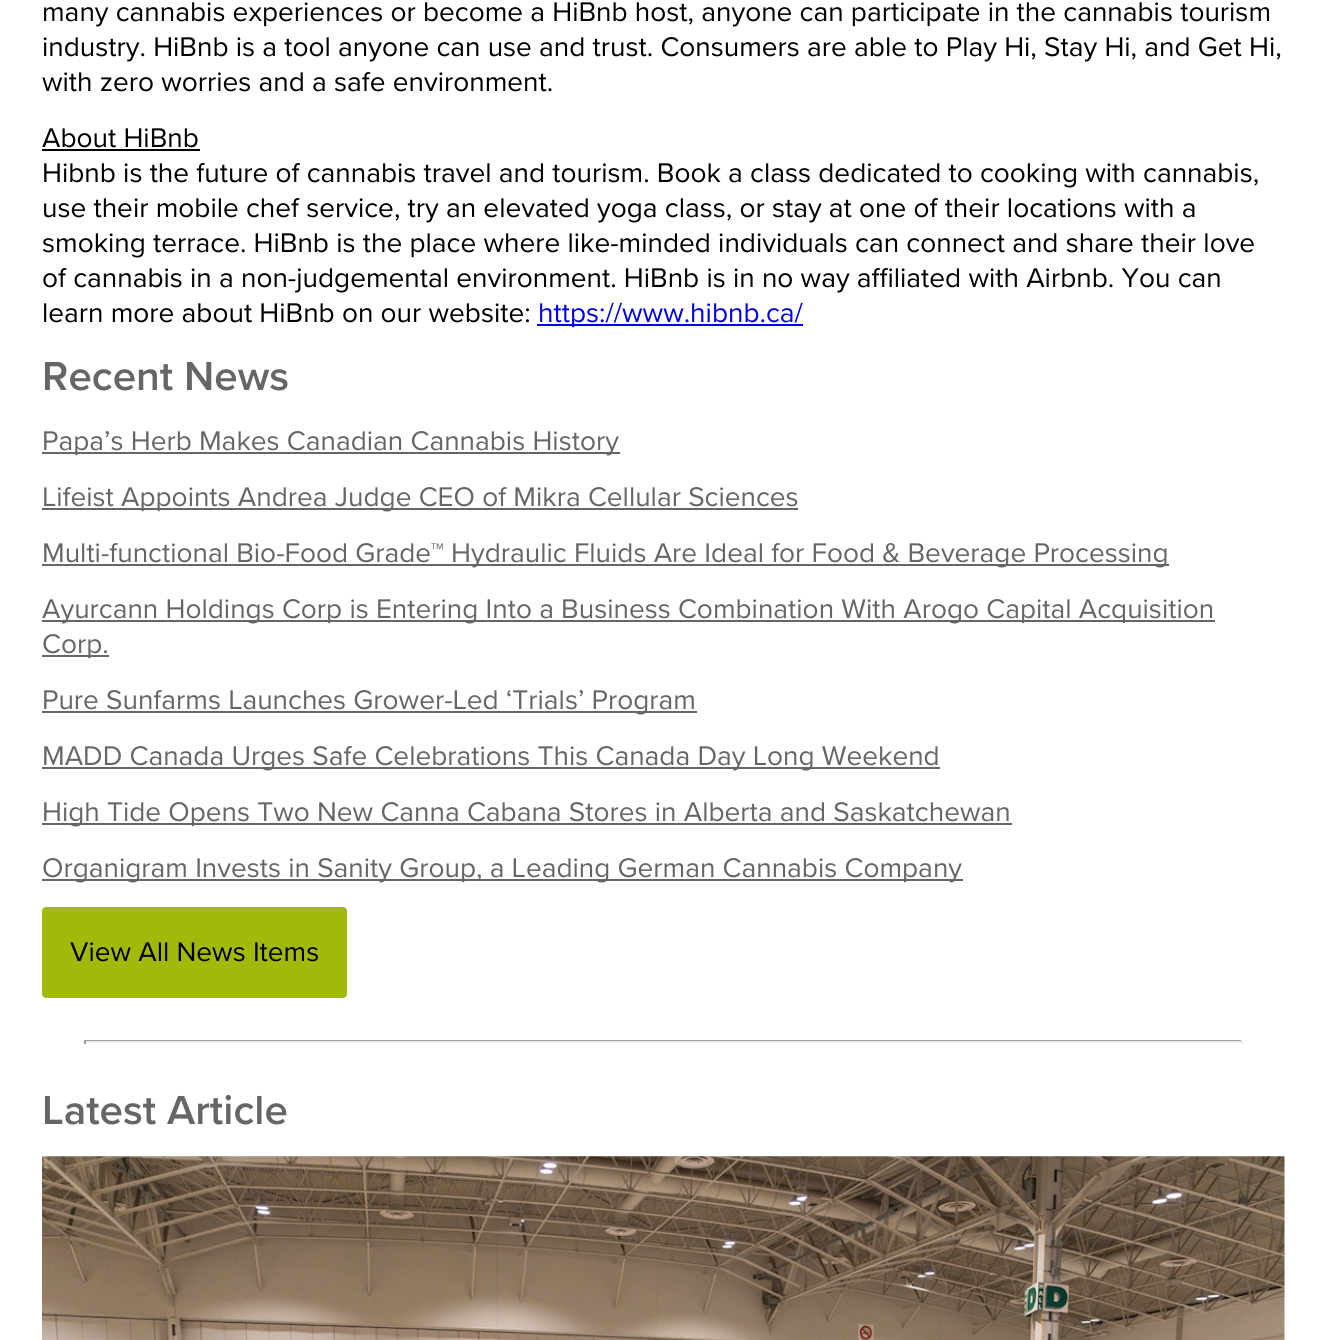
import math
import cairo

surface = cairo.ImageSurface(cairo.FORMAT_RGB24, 1326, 1340)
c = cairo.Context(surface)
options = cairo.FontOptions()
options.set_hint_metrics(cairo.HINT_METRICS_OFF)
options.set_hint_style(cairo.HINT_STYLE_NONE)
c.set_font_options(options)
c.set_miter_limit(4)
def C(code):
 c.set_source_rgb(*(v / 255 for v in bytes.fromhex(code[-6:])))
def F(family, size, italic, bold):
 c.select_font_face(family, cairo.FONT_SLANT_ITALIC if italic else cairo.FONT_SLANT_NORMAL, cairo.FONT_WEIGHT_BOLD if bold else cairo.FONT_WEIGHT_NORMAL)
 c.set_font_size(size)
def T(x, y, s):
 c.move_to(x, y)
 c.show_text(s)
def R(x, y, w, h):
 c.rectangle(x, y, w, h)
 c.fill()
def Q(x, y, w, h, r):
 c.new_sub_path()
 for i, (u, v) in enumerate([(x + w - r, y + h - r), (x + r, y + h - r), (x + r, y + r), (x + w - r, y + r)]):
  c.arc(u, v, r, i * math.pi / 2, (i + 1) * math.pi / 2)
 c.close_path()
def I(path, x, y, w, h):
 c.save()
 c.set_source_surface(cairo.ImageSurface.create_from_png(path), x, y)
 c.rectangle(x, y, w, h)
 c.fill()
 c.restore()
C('ffffff')
c.paint()
F('Proxima Nova',28,0,0)
C('000000')
T(42,21,'many cannabis experiences or become a HiBnb host, anyone can participate in the cannabis tourism')
T(42,56,'industry. HiBnb is a tool anyone can use and trust. Consumers are able to Play Hi, Stay Hi, and Get Hi,')
T(42,91,'with zero worries and a safe environment.')
T(42,147,'About HiBnb')
R(42,149,158,2)
T(42,182,'Hibnb is the future of cannabis travel and tourism. Book a class dedicated to cooking with cannabis,')
T(42,217,'use their mobile chef service, try an elevated yoga class, or stay at one of their locations with a')
T(42,252,'smoking terrace. HiBnb is the place where like-minded individuals can connect and share their love')
T(42,287,'of cannabis in a non-judgemental environment. HiBnb is in no way affiliated with Airbnb. You can')
T(42,322,'learn more about HiBnb on our website:')
C('0000ee')
R(537,324,266,2)
T(538,322,'https://www.hibnb.ca/')
F('Proxima Nova SemiBold',42,0,0)
C('666666')
T(42,390,'Recent News')
R(42,452,578,2)
F('Proxima Nova',28,0,0)
T(42,450,'Papa’s Herb Makes Canadian Cannabis History')
R(42,508,756,2)
T(42,506,'Lifeist Appoints Andrea Judge CEO of Mikra Cellular Sciences')
R(42,564,1127,2)
T(42,562,'Multi-functional Bio-Food Grade™ Hydraulic Fluids Are Ideal for Food & Beverage Processing')
R(42,620,1173,2)
T(42,618,'Ayurcann Holdings Corp is Entering Into a Business Combination With Arogo Capital Acquisition')
R(42,655,67,2)
T(42,653,'Corp.')
R(42,711,655,2)
T(42,709,'Pure Sunfarms Launches Grower-Led ‘Trials’ Program')
R(42,767,898,2)
T(42,765,'MADD Canada Urges Safe Celebrations This Canada Day Long Weekend')
R(42,823,970,2)
T(42,821,'High Tide Opens Two New Canna Cabana Stores in Alberta and Saskatchewan')
R(42,879,921,2)
T(42,877,'Organigram Invests in Sanity Group, a Leading German Cannabis Company')
C('a3b909')
Q(42,907,305,91,4)
c.fill()
C('000000')
T(70,961,'View All News Items')
C('9f9f9f')
R(84,1040,1159,1)
C('eeeeee')
R(1241,1040,2,4)
R(84,1041,1159,2)
C('9f9f9f')
R(84,1040,2,4)
F('Proxima Nova SemiBold',42,0,0)
C('666666')
T(42,1124,'Latest Article')
I('1.png',42,1156,1243,184)
surface.write_to_png('o.png')
